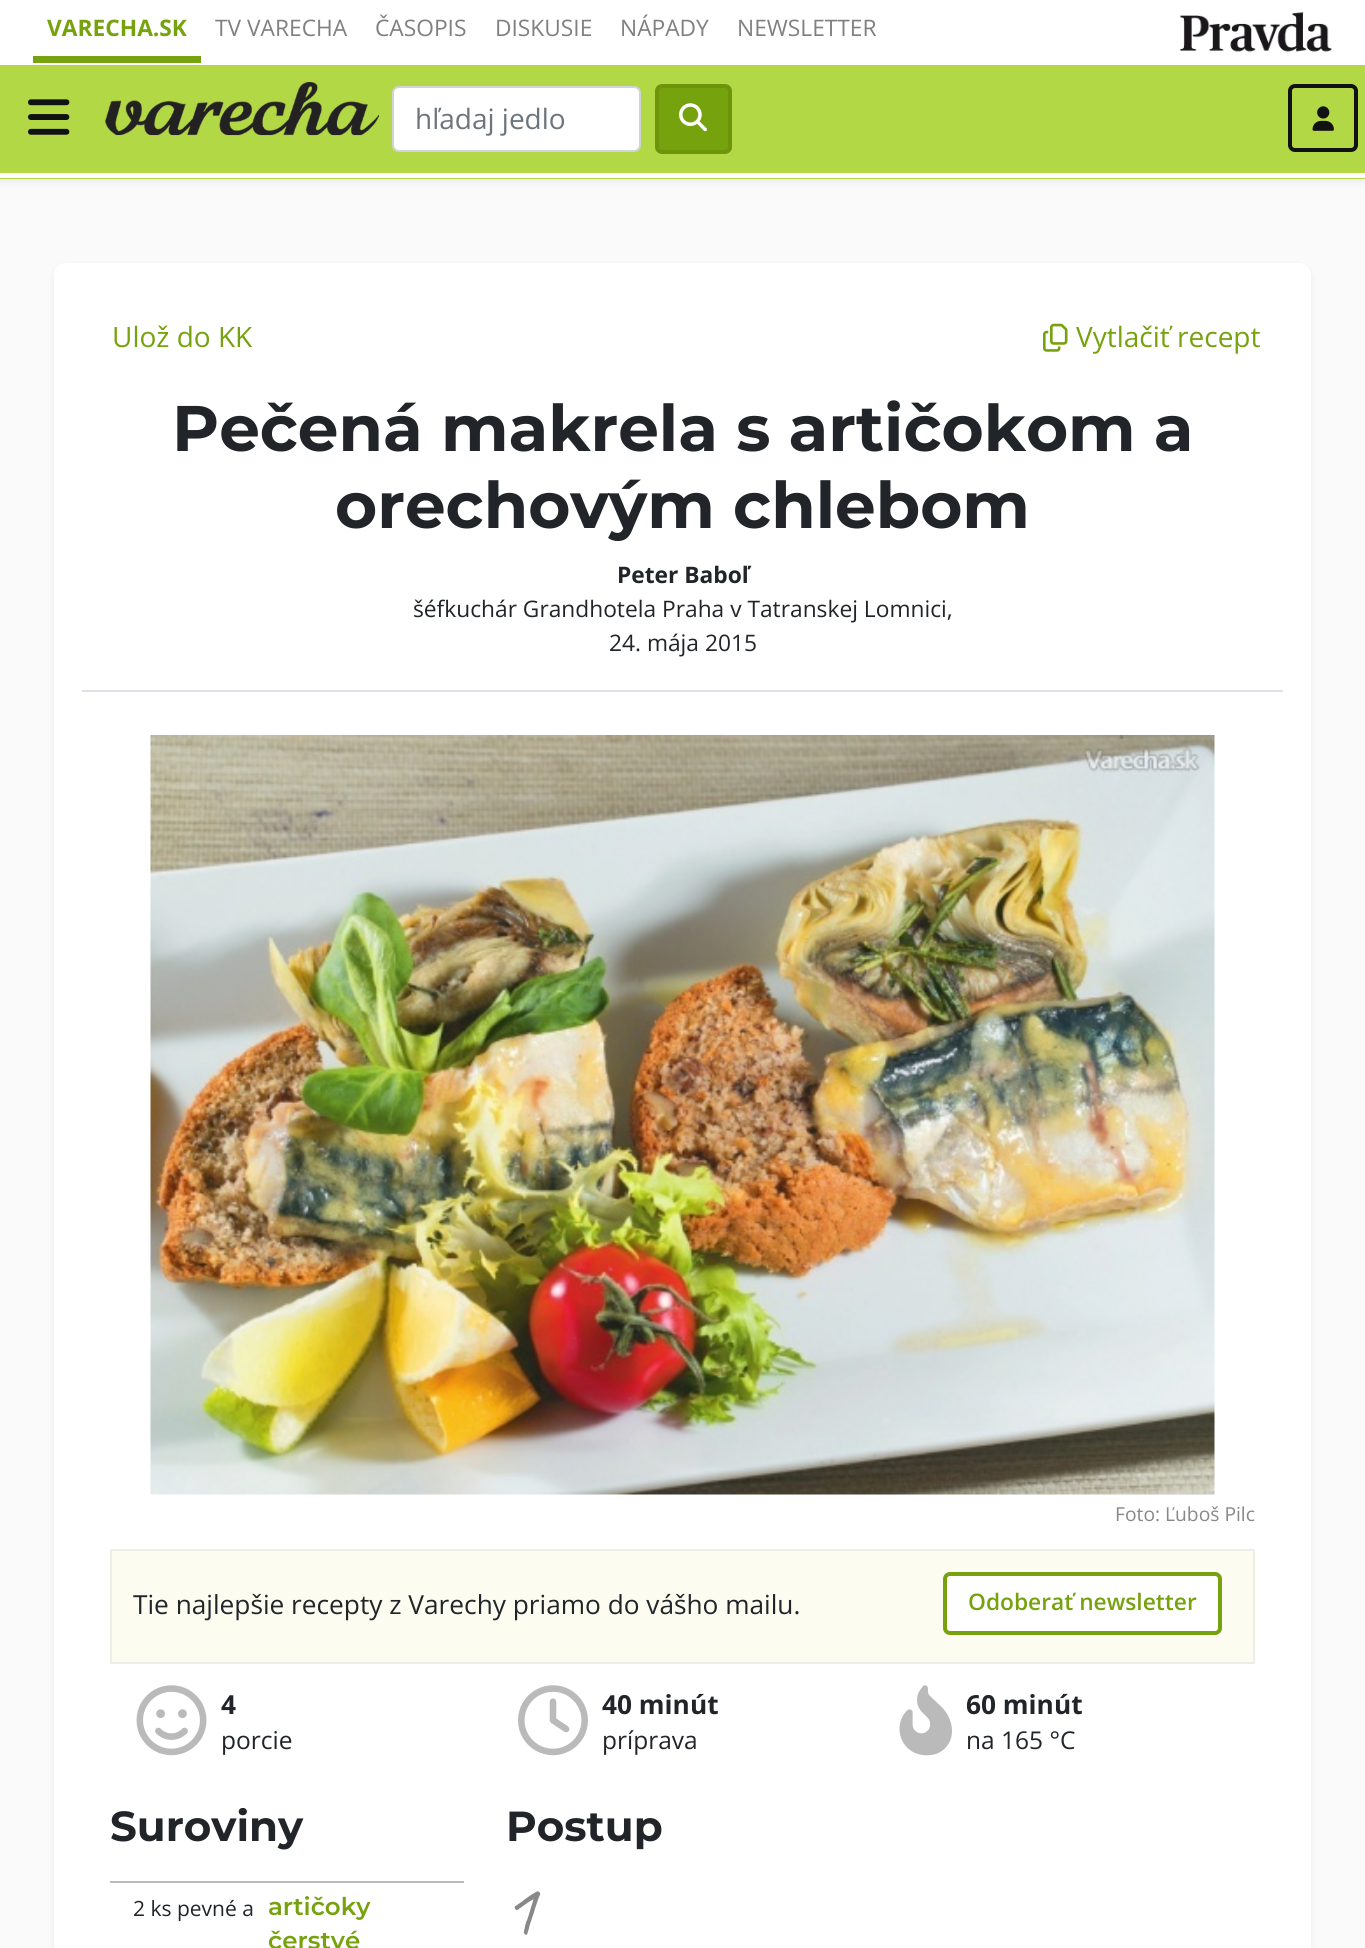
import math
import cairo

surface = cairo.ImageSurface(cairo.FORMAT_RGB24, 1365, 1948)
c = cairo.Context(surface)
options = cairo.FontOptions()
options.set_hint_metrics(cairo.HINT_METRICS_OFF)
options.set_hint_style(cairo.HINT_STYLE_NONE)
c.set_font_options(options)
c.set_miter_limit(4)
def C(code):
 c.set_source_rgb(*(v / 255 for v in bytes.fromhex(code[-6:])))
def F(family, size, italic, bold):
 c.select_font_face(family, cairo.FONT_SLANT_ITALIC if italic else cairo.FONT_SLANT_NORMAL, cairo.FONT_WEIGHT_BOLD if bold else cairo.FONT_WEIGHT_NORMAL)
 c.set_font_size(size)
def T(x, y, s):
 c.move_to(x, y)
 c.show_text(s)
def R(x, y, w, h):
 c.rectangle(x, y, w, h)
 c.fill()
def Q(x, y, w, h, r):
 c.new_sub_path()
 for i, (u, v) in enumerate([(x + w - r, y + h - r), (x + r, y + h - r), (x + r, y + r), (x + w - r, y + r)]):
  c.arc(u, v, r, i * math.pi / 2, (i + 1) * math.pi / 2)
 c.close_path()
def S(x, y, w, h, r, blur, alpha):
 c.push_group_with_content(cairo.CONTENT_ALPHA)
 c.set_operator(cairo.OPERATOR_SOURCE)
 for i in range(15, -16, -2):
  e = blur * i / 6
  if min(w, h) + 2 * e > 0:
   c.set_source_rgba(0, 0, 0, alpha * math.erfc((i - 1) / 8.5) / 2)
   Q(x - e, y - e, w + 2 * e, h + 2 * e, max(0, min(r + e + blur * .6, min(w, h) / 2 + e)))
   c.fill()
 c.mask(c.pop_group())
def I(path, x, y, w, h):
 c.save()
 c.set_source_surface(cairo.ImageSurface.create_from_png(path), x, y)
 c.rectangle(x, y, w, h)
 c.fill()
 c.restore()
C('fafafa')
c.paint()
C('ffffff')
R(0,0,1365,65)
C('76a20e')
R(33,56,168,7)
F('Open Sans',22.75,0,1)
T(47,36,'VARECHA.SK')
F('Open Sans',22.75,0,0)
C('808080')
T(215,36,'TV VARECHA')
T(375,36,'ČASOPIS')
T(495,36,'DISKUSIE')
T(620,36,'NÁPADY')
T(737,36,'NEWSLETTER')
I('1.png',1180,12,152,40)
C('cccccc')
S(0,68,1365,114,0,3.5,.32)
C('b3d846')
R(0,65,1365,114)
C('ffffff')
R(0,173,1365,5)
I('2.png',28,99,42,36)
I('3.png',105,82,274,54)
Q(393,87,247,64,6)
c.fill_preserve()
C('ced4da')
c.stroke()
F('Open Sans',28,0,0)
C('6c757d')
T(415,129,'hľadaj jedlo')
C('76a20e')
Q(657,86,73,66,5)
c.fill_preserve()
C('6d940a')
c.set_line_width(4)
c.stroke()
I('4.png',679,103,28,29)
Q(1290,86,66,64,5)
C('111111')
c.stroke()
I('5.png',1312,106,22,25)
C('cccccc')
S(54,266,1257,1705,12,3.5,.32)
C('ffffff')
Q(54,263,1257,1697,12)
c.fill()
C('dee2e6')
R(82,690,1201,2)
C('76a20e')
T(112,347,'Ulož do KK')
I('6.png',1043,323,25,29)
T(1076,347,'Vytlačiť recept')
F('Montserrat',64.4,0,1)
C('212529')
T(172,451,'Pečená makrela s artičokom a')
T(335,528,'orechovým chlebom')
F('Open Sans',22.75,0,1)
T(617,583,'Peter Baboľ')
F('Open Sans',22.75,0,0)
T(413,617,'šéfkuchár Grandhotela Praha v Tatranskej Lomnici,')
T(609,651,'24. mája 2015')
I('7.png',150,735,1065,760)
F('Open Sans',19.25,0,0)
C('888888')
T(1115,1521,'Foto: Ľuboš Pilc')
C('fdfcf1')
c.rectangle(111,1550,1143,113)
c.fill_preserve()
C('efede7')
c.set_line_width(2)
c.stroke()
F('Open Sans',26.25,0,0)
C('212529')
T(133,1614,'Tie najlepšie recepty z Varechy priamo do vášho mailu.')
C('ffffff')
Q(945,1574,275,59,5)
c.fill_preserve()
C('76a20e')
c.set_line_width(4)
c.stroke()
F('Open Sans SemiBold',22.75,0,0)
T(968,1610,'Odoberať newsletter')
I('8.png',136,1685,71,71)
F('Open Sans',26.25,0,1)
C('212529')
T(221,1714,'4')
F('Open Sans',24.5,0,0)
T(221,1749,'porcie')
I('9.png',518,1685,70,71)
F('Open Sans',26.25,0,1)
T(602,1714,'40 minút')
F('Open Sans',24.5,0,0)
T(602,1749,'príprava')
I('10.png',899,1685,53,71)
F('Open Sans',26.25,0,1)
T(966,1714,'60 minút')
F('Open Sans',24.5,0,0)
T(966,1749,'na 165 °C')
F('Montserrat',42,0,1)
T(110,1841,'Suroviny')
F('Open Sans',21,0,0)
T(133,1916,'2 ks pevné a')
C('bababa')
R(110,1881,354,2)
F('Montserrat SemiBold',24.5,0,0)
C('76a20e')
T(268,1915,'artičoky')
T(268,1949,'čerstvé')
F('Montserrat',42,0,1)
C('212529')
T(506,1841,'Postup')
F('Caveat',77,0,0)
C('888888')
T(502,1934,'1')
surface.write_to_png('o.png')
